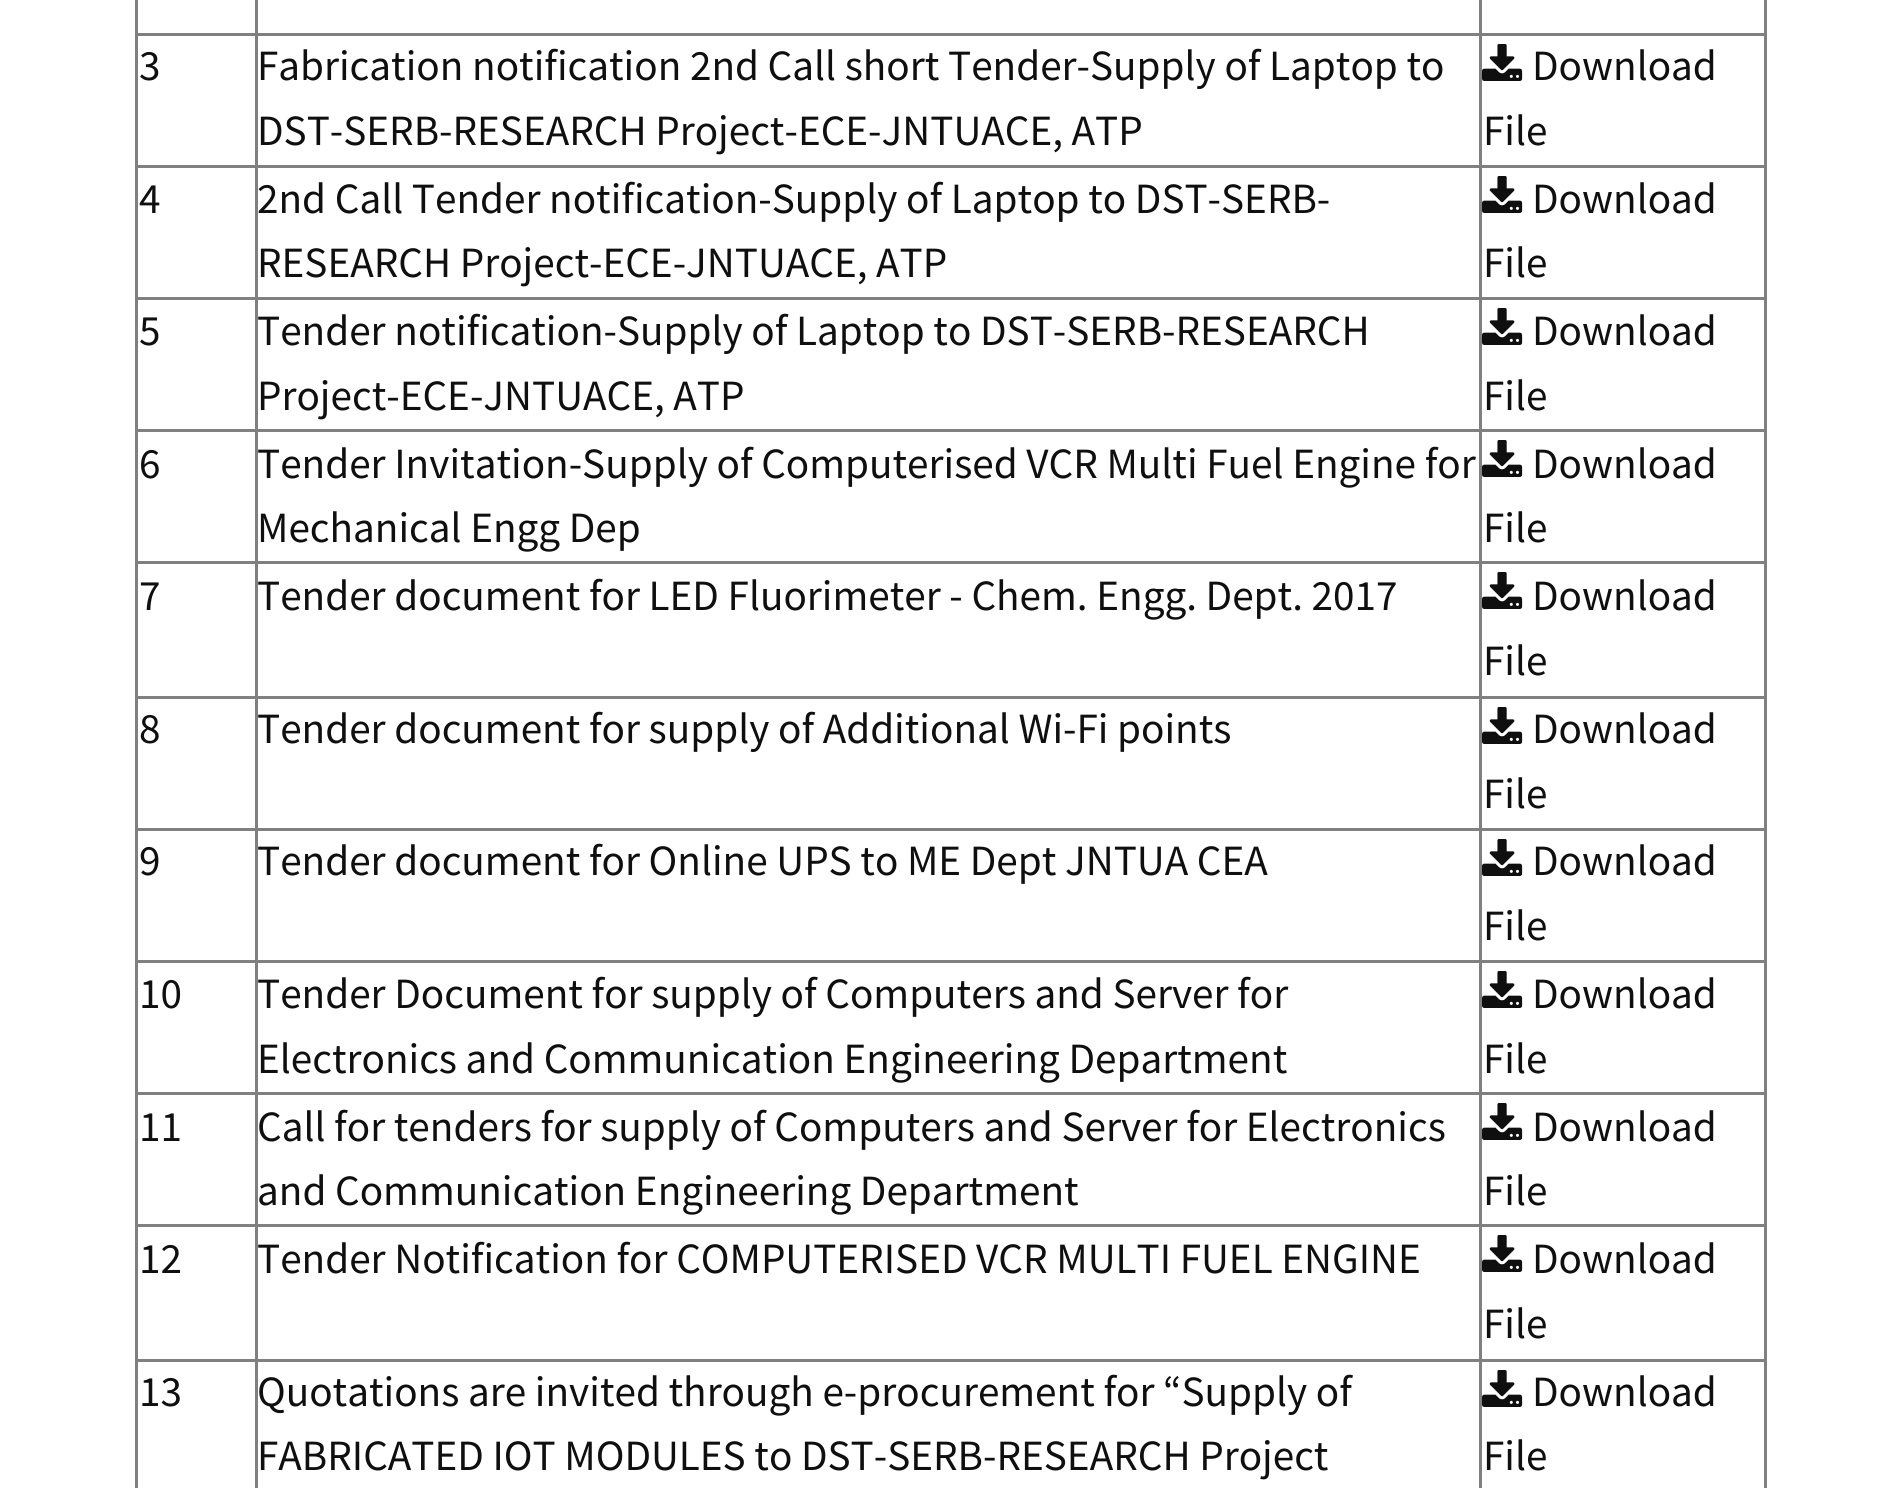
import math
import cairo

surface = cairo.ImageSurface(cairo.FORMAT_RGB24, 1901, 1488)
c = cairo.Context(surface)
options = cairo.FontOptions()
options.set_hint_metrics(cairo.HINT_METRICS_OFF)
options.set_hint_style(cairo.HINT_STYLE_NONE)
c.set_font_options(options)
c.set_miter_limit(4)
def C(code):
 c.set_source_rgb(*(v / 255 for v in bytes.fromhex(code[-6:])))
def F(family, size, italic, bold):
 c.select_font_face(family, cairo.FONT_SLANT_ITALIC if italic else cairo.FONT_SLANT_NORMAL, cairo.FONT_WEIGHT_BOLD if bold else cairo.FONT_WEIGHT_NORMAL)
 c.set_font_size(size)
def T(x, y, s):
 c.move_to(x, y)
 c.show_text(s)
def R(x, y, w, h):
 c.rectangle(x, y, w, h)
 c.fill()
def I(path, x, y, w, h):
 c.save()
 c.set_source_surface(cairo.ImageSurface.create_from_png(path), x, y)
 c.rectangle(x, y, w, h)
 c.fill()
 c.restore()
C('ffffff')
c.paint()
C('808080')
R(1764,0,3,1488)
R(135,0,3,1488)
R(1479,33,288,3)
R(1479,165,288,3)
R(1479,297,288,3)
R(1479,429,288,3)
R(1479,561,288,3)
R(1479,696,288,3)
R(1479,828,288,3)
R(1479,960,288,3)
R(1479,1092,288,3)
R(1479,1224,288,3)
R(1479,1359,288,3)
R(1479,1359,3,129)
R(255,1359,1227,3)
R(1479,1224,3,138)
R(255,1224,1227,3)
R(1479,1092,3,135)
R(255,1092,1227,3)
R(1479,960,3,135)
R(255,960,1227,3)
R(1479,828,3,135)
R(255,828,1227,3)
R(1479,696,3,135)
R(255,696,1227,3)
R(1479,561,3,138)
R(255,561,1227,3)
R(1479,429,3,135)
R(255,429,1227,3)
R(1479,297,3,135)
R(255,297,1227,3)
R(1479,165,3,135)
R(255,165,1227,3)
R(1479,33,3,135)
R(255,33,1227,3)
R(255,1359,3,129)
R(135,1359,123,3)
R(255,1224,3,138)
R(135,1224,123,3)
R(255,1092,3,135)
R(135,1092,123,3)
R(255,960,3,135)
R(135,960,123,3)
R(255,828,3,135)
R(135,828,123,3)
R(255,696,3,135)
R(135,696,123,3)
R(255,561,3,138)
R(135,561,123,3)
R(255,429,3,135)
R(135,429,123,3)
R(255,297,3,135)
R(135,297,123,3)
R(255,165,3,135)
R(135,165,123,3)
R(255,33,3,135)
R(135,33,123,3)
R(255,0,3,36)
R(1479,0,3,36)
F('Source Sans Pro',43.2,0,0)
C('0f0f0f')
T(139,80,'3')
T(257,80,'Fabrication notification 2nd Call short Tender-Supply of Laptop to')
T(257,145,'DST-SERB-RESEARCH Project-ECE-JNTUACE, ATP')
I('1.png',1482,44,41,37)
T(1532,80,'Download')
T(1483,145,'File')
T(139,213,'4')
T(257,213,'2nd Call Tender notification-Supply of Laptop to DST-SERB-')
T(257,277,'RESEARCH Project-ECE-JNTUACE, ATP')
I('1.png',1482,176,41,37)
T(1532,213,'Download')
T(1483,277,'File')
T(139,345,'5')
T(257,345,'Tender notification-Supply of Laptop to DST-SERB-RESEARCH')
T(257,410,'Project-ECE-JNTUACE, ATP')
I('1.png',1482,308,41,37)
T(1532,345,'Download')
T(1483,410,'File')
T(139,478,'6')
T(257,478,'Tender Invitation-Supply of Computerised VCR Multi Fuel Engine for')
T(257,542,'Mechanical Engg Dep')
I('1.png',1482,440,41,37)
T(1532,478,'Download')
T(1483,542,'File')
T(139,610,'7')
T(257,610,'Tender document for LED Fluorimeter - Chem. Engg. Dept. 2017')
I('1.png',1482,572,41,37)
T(1532,610,'Download')
T(1483,675,'File')
T(139,743,'8')
T(257,743,'Tender document for supply of Additional Wi-Fi points')
I('1.png',1482,707,41,37)
T(1532,743,'Download')
T(1483,808,'File')
T(139,875,'9')
T(257,875,'Tender document for Online UPS to ME Dept JNTUA CEA')
I('1.png',1482,839,41,37)
T(1532,875,'Download')
T(1483,940,'File')
T(139,1008,'10')
T(257,1008,'Tender Document for supply of Computers and Server for')
T(257,1073,'Electronics and Communication Engineering Department')
I('1.png',1482,971,41,37)
T(1532,1008,'Download')
T(1483,1073,'File')
T(139,1141,'11')
T(257,1141,'Call for tenders for supply of Computers and Server for Electronics')
T(257,1205,'and Communication Engineering Department')
I('1.png',1482,1103,41,37)
T(1532,1141,'Download')
T(1483,1205,'File')
T(139,1273,'12')
T(257,1273,'Tender Notification for COMPUTERISED VCR MULTI FUEL ENGINE')
I('1.png',1482,1235,41,37)
T(1532,1273,'Download')
T(1483,1338,'File')
T(139,1406,'13')
T(257,1406,'Quotations are invited through e-procurement for “Supply of')
T(257,1470,'FABRICATED IOT MODULES to DST-SERB-RESEARCH Project')
I('1.png',1482,1370,41,37)
T(1532,1406,'Download')
T(1483,1470,'File')
surface.write_to_png('o.png')
